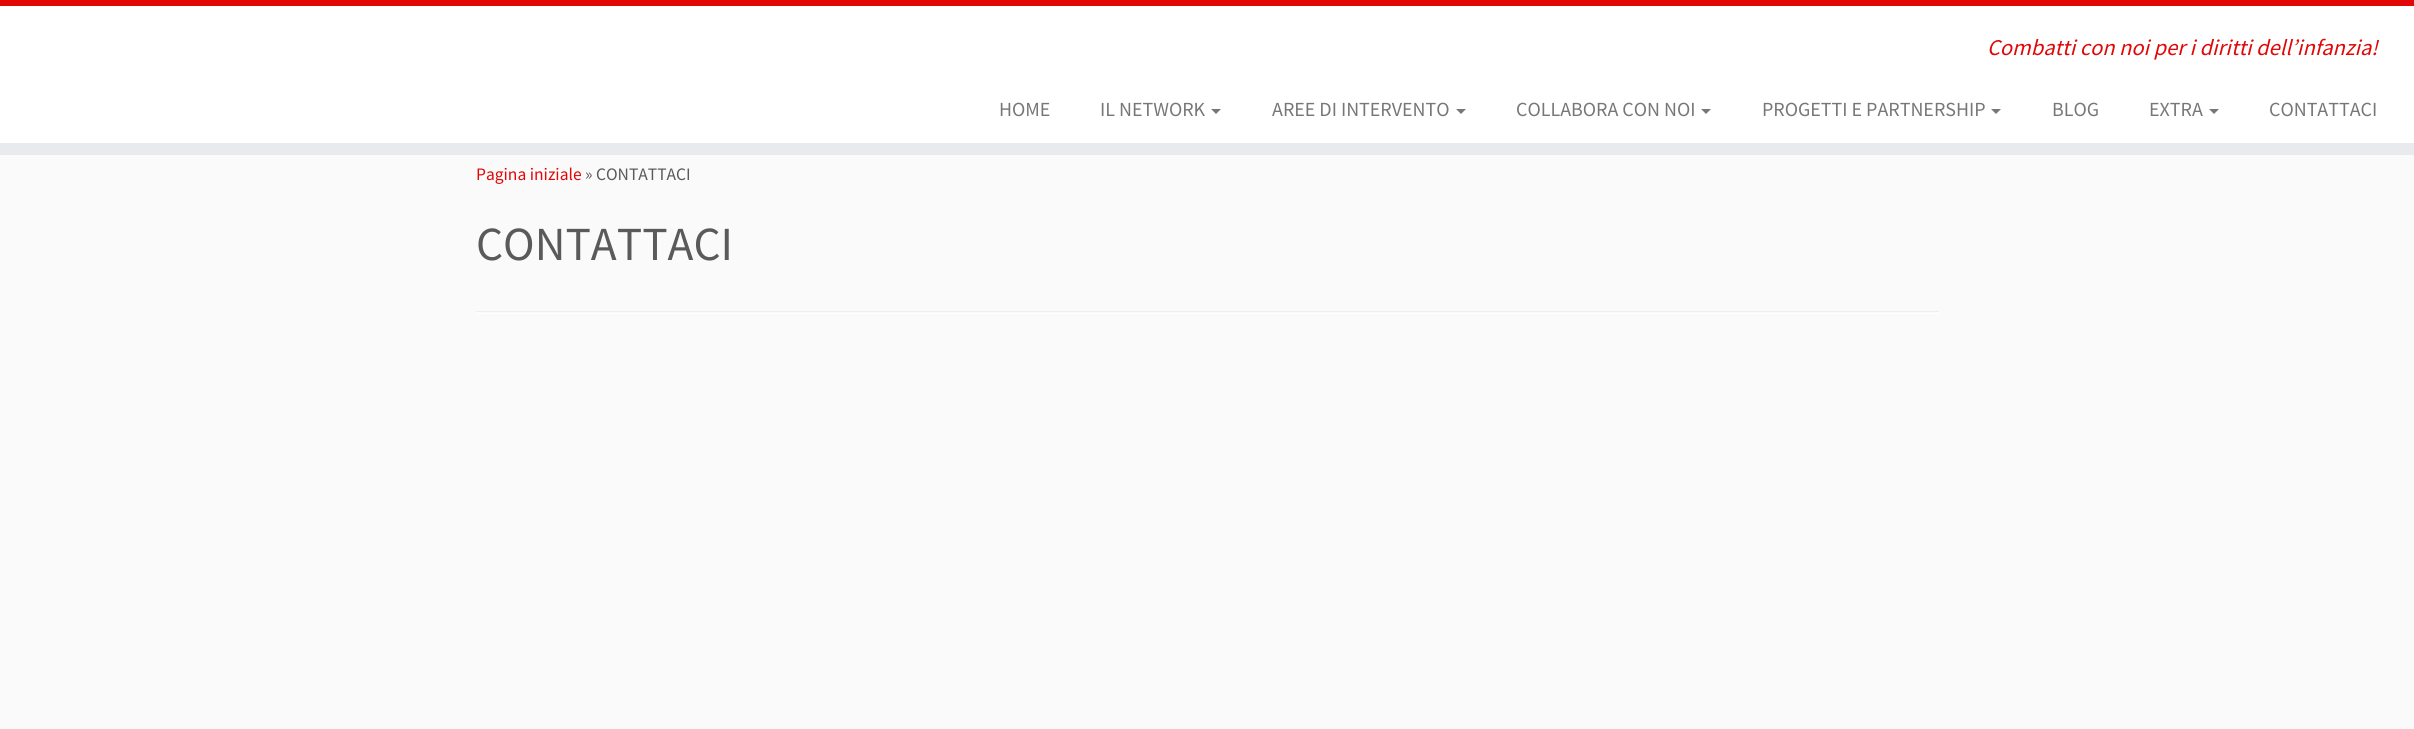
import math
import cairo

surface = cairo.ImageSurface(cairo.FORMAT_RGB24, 2414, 729)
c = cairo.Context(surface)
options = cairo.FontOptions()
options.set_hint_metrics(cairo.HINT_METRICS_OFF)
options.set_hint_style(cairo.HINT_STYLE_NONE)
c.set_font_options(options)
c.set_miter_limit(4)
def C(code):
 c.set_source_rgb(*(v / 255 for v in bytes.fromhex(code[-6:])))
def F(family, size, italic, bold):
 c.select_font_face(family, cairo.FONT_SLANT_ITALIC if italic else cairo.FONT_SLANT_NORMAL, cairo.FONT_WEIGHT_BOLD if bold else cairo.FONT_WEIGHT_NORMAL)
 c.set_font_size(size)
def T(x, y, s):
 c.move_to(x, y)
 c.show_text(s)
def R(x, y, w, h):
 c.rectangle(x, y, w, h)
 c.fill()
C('fafafa')
c.paint()
C('ffffff')
R(0,6,2414,137)
C('e10707')
R(0,0,2414,6)
C('e9eaee')
R(0,143,2414,12)
F('Source Sans Pro',22.5,1,0)
C('e10707')
T(1987,55,'Combatti con noi per i diritti dell’infanzia!')
F('Source Sans Pro',20,0,0)
C('777777')
T(999,116,'HOME')
T(1100,116,'IL NETWORK')
c.new_path()
c.move_to(1211,109)
c.line_to(1221,109)
c.line_to(1216,114)
c.close_path()
c.fill()
T(1272,116,'AREE DI INTERVENTO')
c.new_path()
c.move_to(1456,109)
c.line_to(1466,109)
c.line_to(1461,114)
c.close_path()
c.fill()
T(1516,116,'COLLABORA CON NOI')
c.new_path()
c.move_to(1701,109)
c.line_to(1711,109)
c.line_to(1706,114)
c.close_path()
c.fill()
T(1762,116,'PROGETTI E PARTNERSHIP')
c.new_path()
c.move_to(1991,109)
c.line_to(2001,109)
c.line_to(1996,114)
c.close_path()
c.fill()
T(2052,116,'BLOG')
T(2149,116,'EXTRA')
c.new_path()
c.move_to(2209,109)
c.line_to(2219,109)
c.line_to(2214,114)
c.close_path()
c.fill()
T(2269,116,'CONTATTACI')
F('Source Sans Pro',17.5,0,0)
C('e10707')
T(476,180,'Pagina iniziale')
C('5a5a5a')
T(585,180,'» CONTATTACI')
F('Source Sans Pro',47.5,0,0)
T(476,260,'CONTATTACI')
C('eeeeee')
R(476,311,1463,1)
C('ffffff')
R(476,313,1463,1)
surface.write_to_png('o.png')
